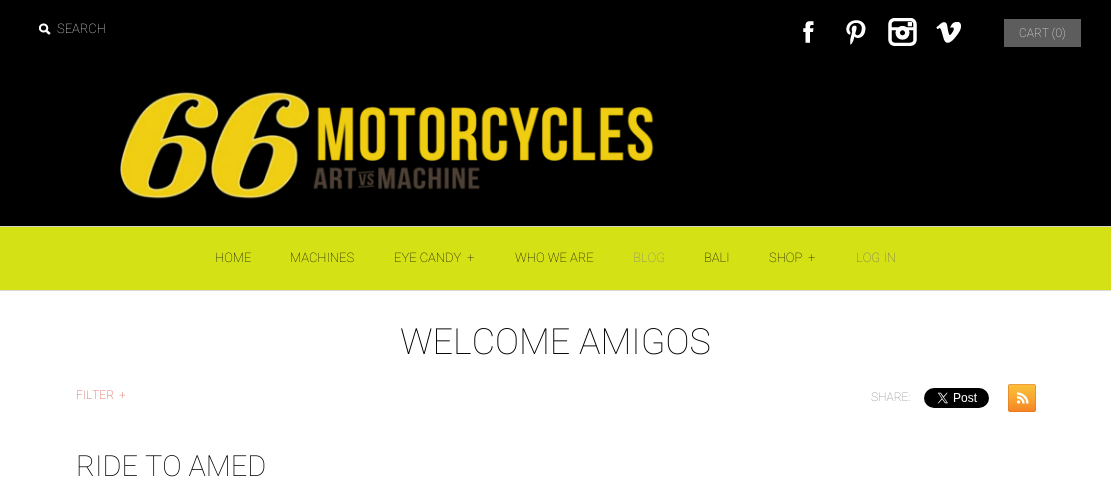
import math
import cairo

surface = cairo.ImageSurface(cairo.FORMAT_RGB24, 1111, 504)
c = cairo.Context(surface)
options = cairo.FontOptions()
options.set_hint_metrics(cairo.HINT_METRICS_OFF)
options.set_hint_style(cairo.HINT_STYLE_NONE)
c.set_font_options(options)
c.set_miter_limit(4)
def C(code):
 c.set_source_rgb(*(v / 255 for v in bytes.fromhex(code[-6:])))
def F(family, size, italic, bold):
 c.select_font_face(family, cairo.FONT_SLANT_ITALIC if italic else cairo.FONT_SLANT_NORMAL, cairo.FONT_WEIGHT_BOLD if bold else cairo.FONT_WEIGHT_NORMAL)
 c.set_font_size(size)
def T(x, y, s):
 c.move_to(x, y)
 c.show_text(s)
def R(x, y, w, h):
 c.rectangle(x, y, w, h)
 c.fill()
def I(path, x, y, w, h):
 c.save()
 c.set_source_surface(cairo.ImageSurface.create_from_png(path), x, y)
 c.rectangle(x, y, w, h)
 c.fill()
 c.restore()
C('d9d9d4')
c.paint()
C('000000')
R(0,0,1111,226)
I('1.png',39,23,12,12)
F('Roboto Thin',13,0,0)
C('ffffff')
T(57,33,'SEARCH')
I('2.png',803,21,11,22)
I('3.png',846,20,20,25)
I('4.png',888,18,29,28)
I('5.png',936,22,25,21)
C('5d5d5d')
R(1004,19,77,28)
F('Roboto Thin',12,0,0)
C('ffffff')
T(1019,37,'CART (0)')
I('6.png',120,92,534,107)
C('d3e115')
R(0,227,1111,63)
C('d2d3c3')
R(0,226,1111,1)
F('Roboto Thin',13,0,0)
C('000000')
T(215,262,'HOME')
T(290,262,'MACHINES')
T(394,262,'EYE CANDY')
T(467,262,'+')
T(515,262,'WHO WE ARE')
C('7f807f')
T(633,262,'BLOG')
C('000000')
T(704,262,'BALI')
T(769,262,'SHOP')
T(808,262,'+')
C('696666')
T(856,262,'LOG IN')
C('ffffff')
R(0,291,1111,213)
F('Roboto Thin',36,0,0)
C('000000')
T(400,354,'WELCOME AMIGOS')
F('Roboto Thin',12,0,0)
C('cf3022')
T(76,399,'FILTER')
T(119,399,'+')
C('7a7a7a')
T(871,401,'SHARE:')
I('7.png',924,388,65,20)
I('8.png',1008,384,28,28)
F('Roboto Thin',29,0,0)
C('000000')
T(76,476,'RIDE TO AMED')
surface.write_to_png('o.png')
